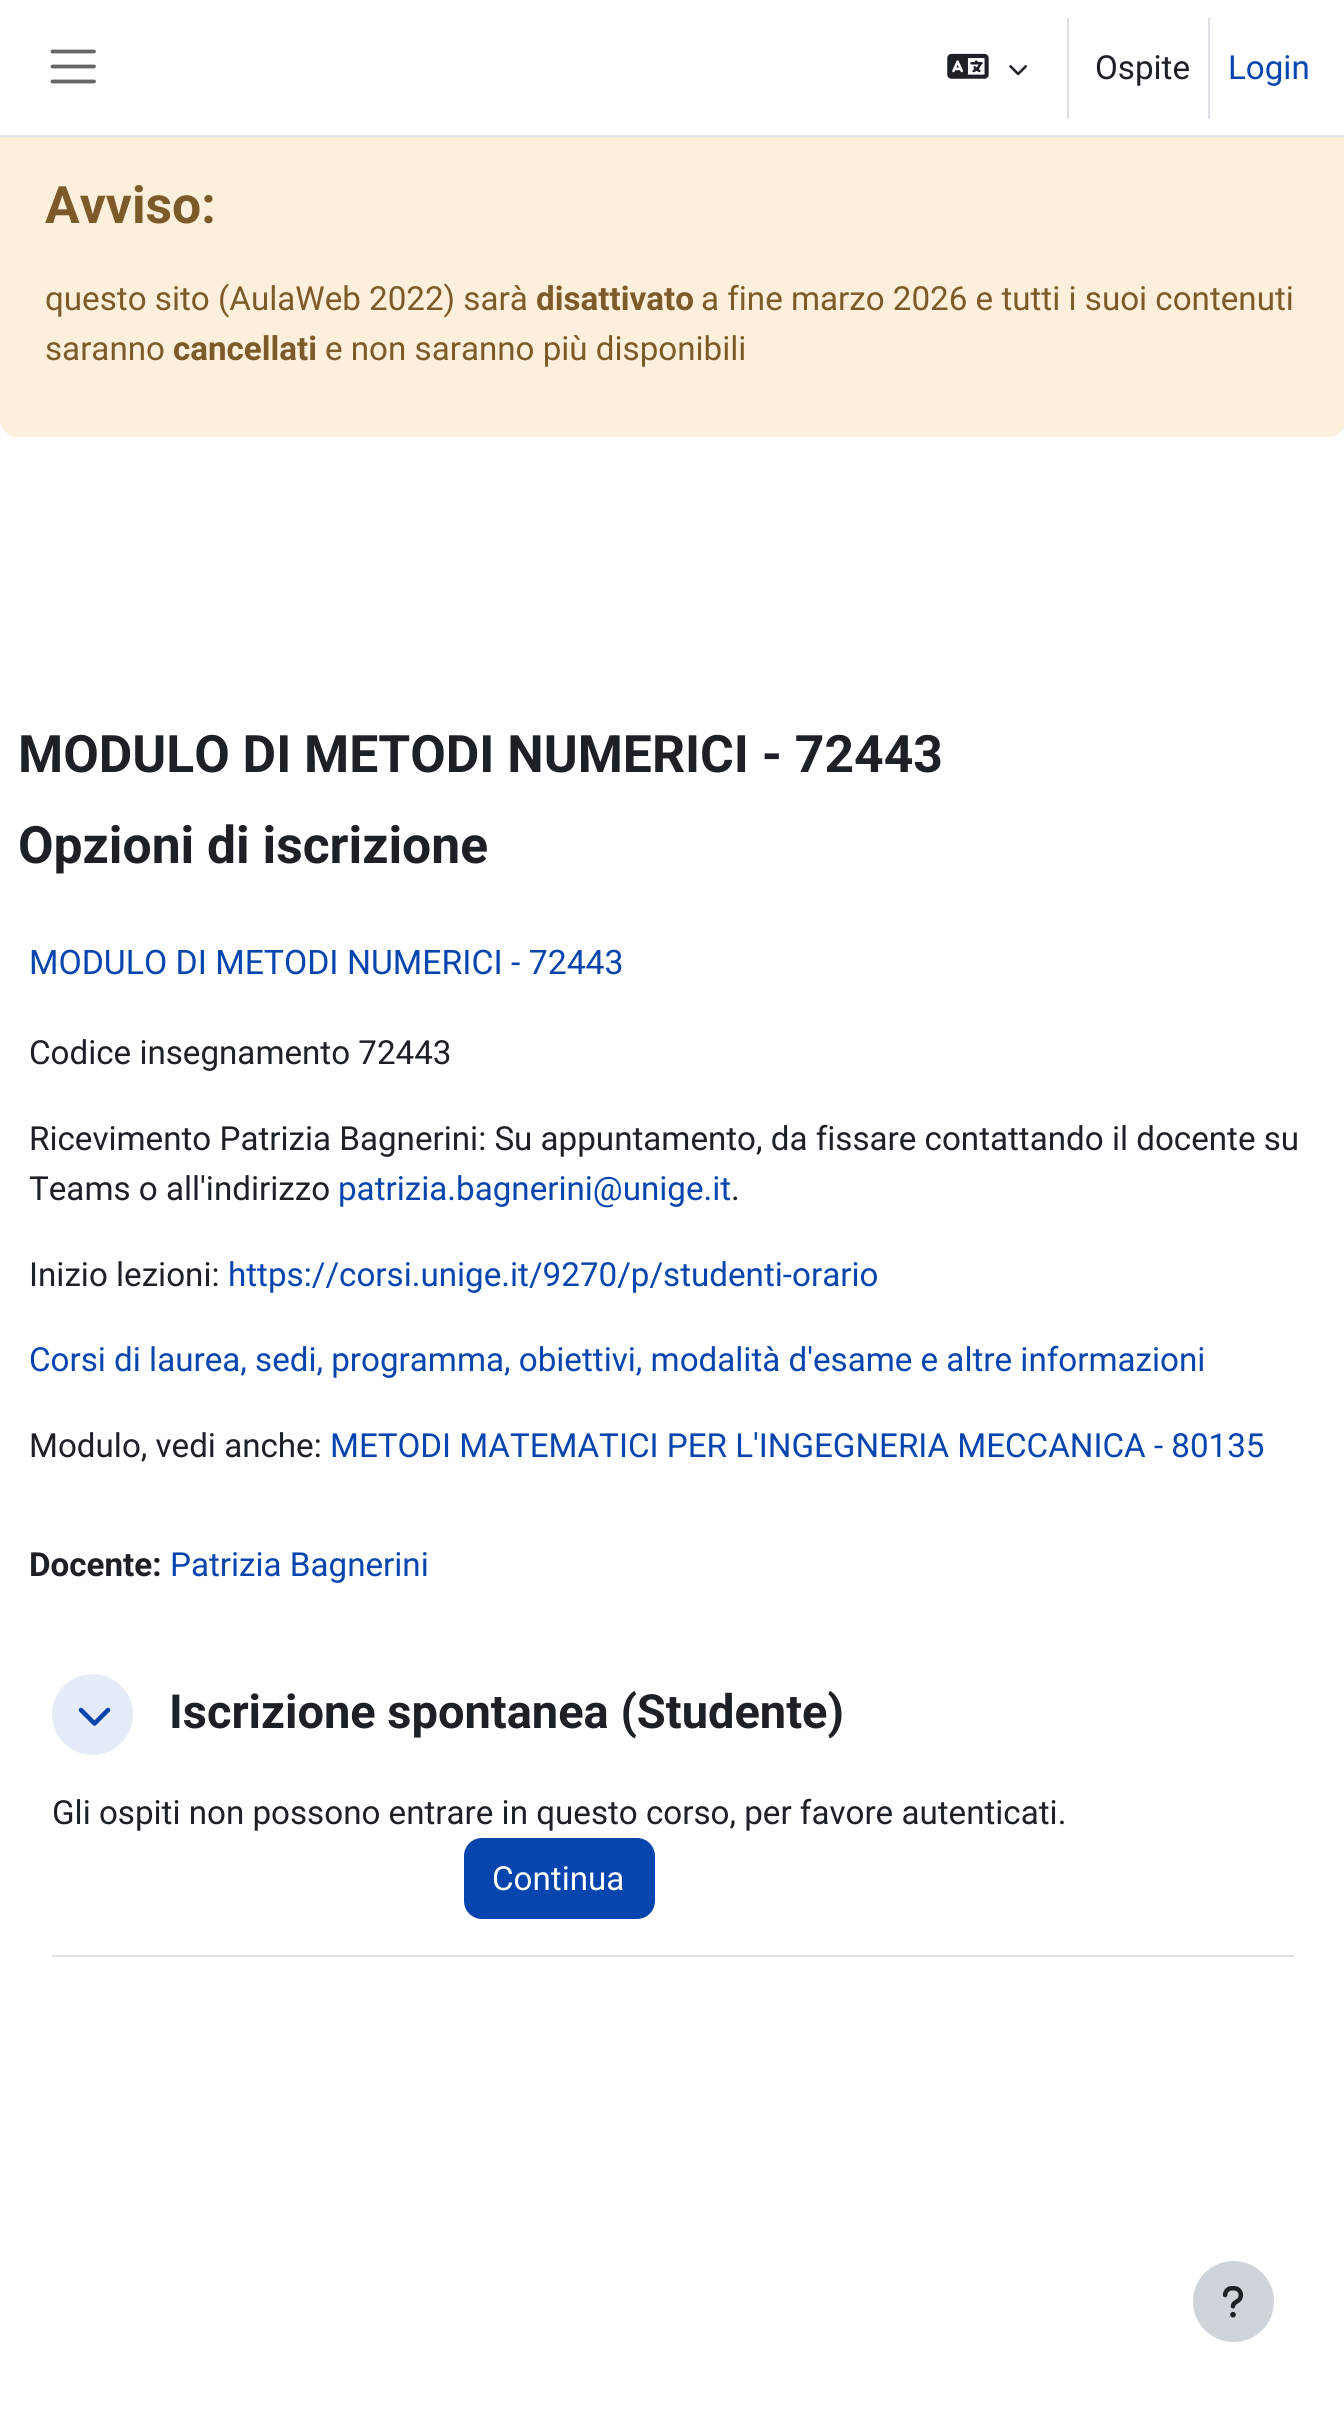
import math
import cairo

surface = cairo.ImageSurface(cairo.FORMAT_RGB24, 1344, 2414)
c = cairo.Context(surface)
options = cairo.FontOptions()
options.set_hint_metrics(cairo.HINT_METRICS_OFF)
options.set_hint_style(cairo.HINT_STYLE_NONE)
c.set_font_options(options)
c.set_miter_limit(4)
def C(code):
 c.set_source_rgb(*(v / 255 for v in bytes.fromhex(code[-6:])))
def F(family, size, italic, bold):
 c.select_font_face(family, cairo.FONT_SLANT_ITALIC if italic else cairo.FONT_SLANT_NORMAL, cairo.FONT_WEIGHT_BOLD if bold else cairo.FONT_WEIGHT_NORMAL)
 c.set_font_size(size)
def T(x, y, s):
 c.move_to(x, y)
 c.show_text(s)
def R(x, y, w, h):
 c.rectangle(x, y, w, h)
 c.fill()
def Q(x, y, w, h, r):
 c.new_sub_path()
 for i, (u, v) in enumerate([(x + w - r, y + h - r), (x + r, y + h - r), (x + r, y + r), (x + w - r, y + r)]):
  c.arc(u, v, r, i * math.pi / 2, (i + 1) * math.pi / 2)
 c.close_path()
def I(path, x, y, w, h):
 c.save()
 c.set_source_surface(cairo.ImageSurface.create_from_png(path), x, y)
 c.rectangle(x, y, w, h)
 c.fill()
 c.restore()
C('ffffff')
c.paint()
C('fcefdc')
Q(0,0,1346,437,18)
c.fill()
C('ffffff')
R(0,0,1344,135)
C('dee2e6')
R(0,135,1344,2)
c.new_path()
c.move_to(52.5,51.5)
c.line_to(94,51.5)
c.move_to(52.5,66.5)
c.line_to(94,66.5)
c.move_to(52.5,81.5)
c.line_to(94,81.5)
C('666666')
c.set_line_width(3.8)
c.set_line_cap(cairo.LINE_CAP_ROUND)
c.stroke()
I('1.png',947,53,42,26)
I('2.png',1009,65,18,11)
C('dee2e6')
R(1067,18,2,101)
F('Roboto',33.15,0,0)
C('1d2125')
T(1095,79,'Ospite')
C('dee2e6')
R(1208,18,2,101)
C('0645ad')
T(1228,79,'Login')
F('Roboto',51.6,0,1)
C('7d5a29')
T(45,223,'Avviso:')
F('Roboto',33.15,0,0)
T(45,310,'questo sito (AulaWeb 2022) sarà')
F('Roboto',33.15,0,1)
T(536,310,'disattivato')
F('Roboto',33.15,0,0)
T(701,310,'a fine marzo 2026 e tutti i suoi contenuti')
T(45,360,'saranno')
F('Roboto',33.15,0,1)
T(173,360,'cancellati')
F('Roboto',33.15,0,0)
T(325,360,'e non saranno più disponibili')
F('Roboto',51.6,0,1)
C('1d2125')
T(18,772,'MODULO DI METODI NUMERICI - 72443')
T(18,863,'Opzioni di iscrizione')
F('Roboto',33.75,0,0)
C('0645ad')
T(29,974,'MODULO DI METODI NUMERICI - 72443')
F('Roboto',33.15,0,0)
C('1d2125')
T(29,1064,'Codice insegnamento 72443')
T(29,1150,'Ricevimento Patrizia Bagnerini: Su appuntamento, da fissare contattando il docente su')
T(29,1200,'Teams o all\'indirizzo')
C('0645ad')
T(338,1200,'patrizia.bagnerini@unige.it')
C('1d2125')
T(731,1200,'.')
T(29,1286,'Inizio lezioni:')
C('0645ad')
T(228,1286,'https://corsi.unige.it/9270/p/studenti-orario')
T(29,1371,'Corsi di laurea, sedi, programma, obiettivi, modalità d\'esame e altre informazioni')
C('1d2125')
T(29,1457,'Modulo, vedi anche:')
C('0645ad')
T(330,1457,'METODI MATEMATICI PER L\'INGEGNERIA MECCANICA - 80135')
F('Roboto',33.15,0,1)
C('1d2125')
T(29,1576,'Docente:')
F('Roboto',33.15,0,0)
C('0645ad')
T(170,1576,'Patrizia Bagnerini')
C('dee2e6')
R(52,1955,1242,2)
C('e6ecf7')
c.new_path()
c.arc(92.5,1714.5,40.5,0,2 * math.pi)
c.fill()
I('3.png',78,1707,33,19)
F('Roboto',47,0,1)
C('1d2125')
T(169,1728,'Iscrizione spontanea (Studente)')
F('Roboto',33.15,0,0)
T(52,1824,'Gli ospiti non possono entrare in questo corso, per favore autenticati.')
C('0645ad')
Q(465,1839,189,79,17)
c.fill_preserve()
c.set_line_width(2)
c.set_line_cap(cairo.LINE_CAP_BUTT)
c.stroke()
C('ffffff')
T(492,1890,'Continua')
C('ced4da')
c.new_path()
c.arc(1233.5,2301.5,40.5,0,2 * math.pi)
c.fill()
I('4.png',1222,2286,22,32)
surface.write_to_png('o.png')
